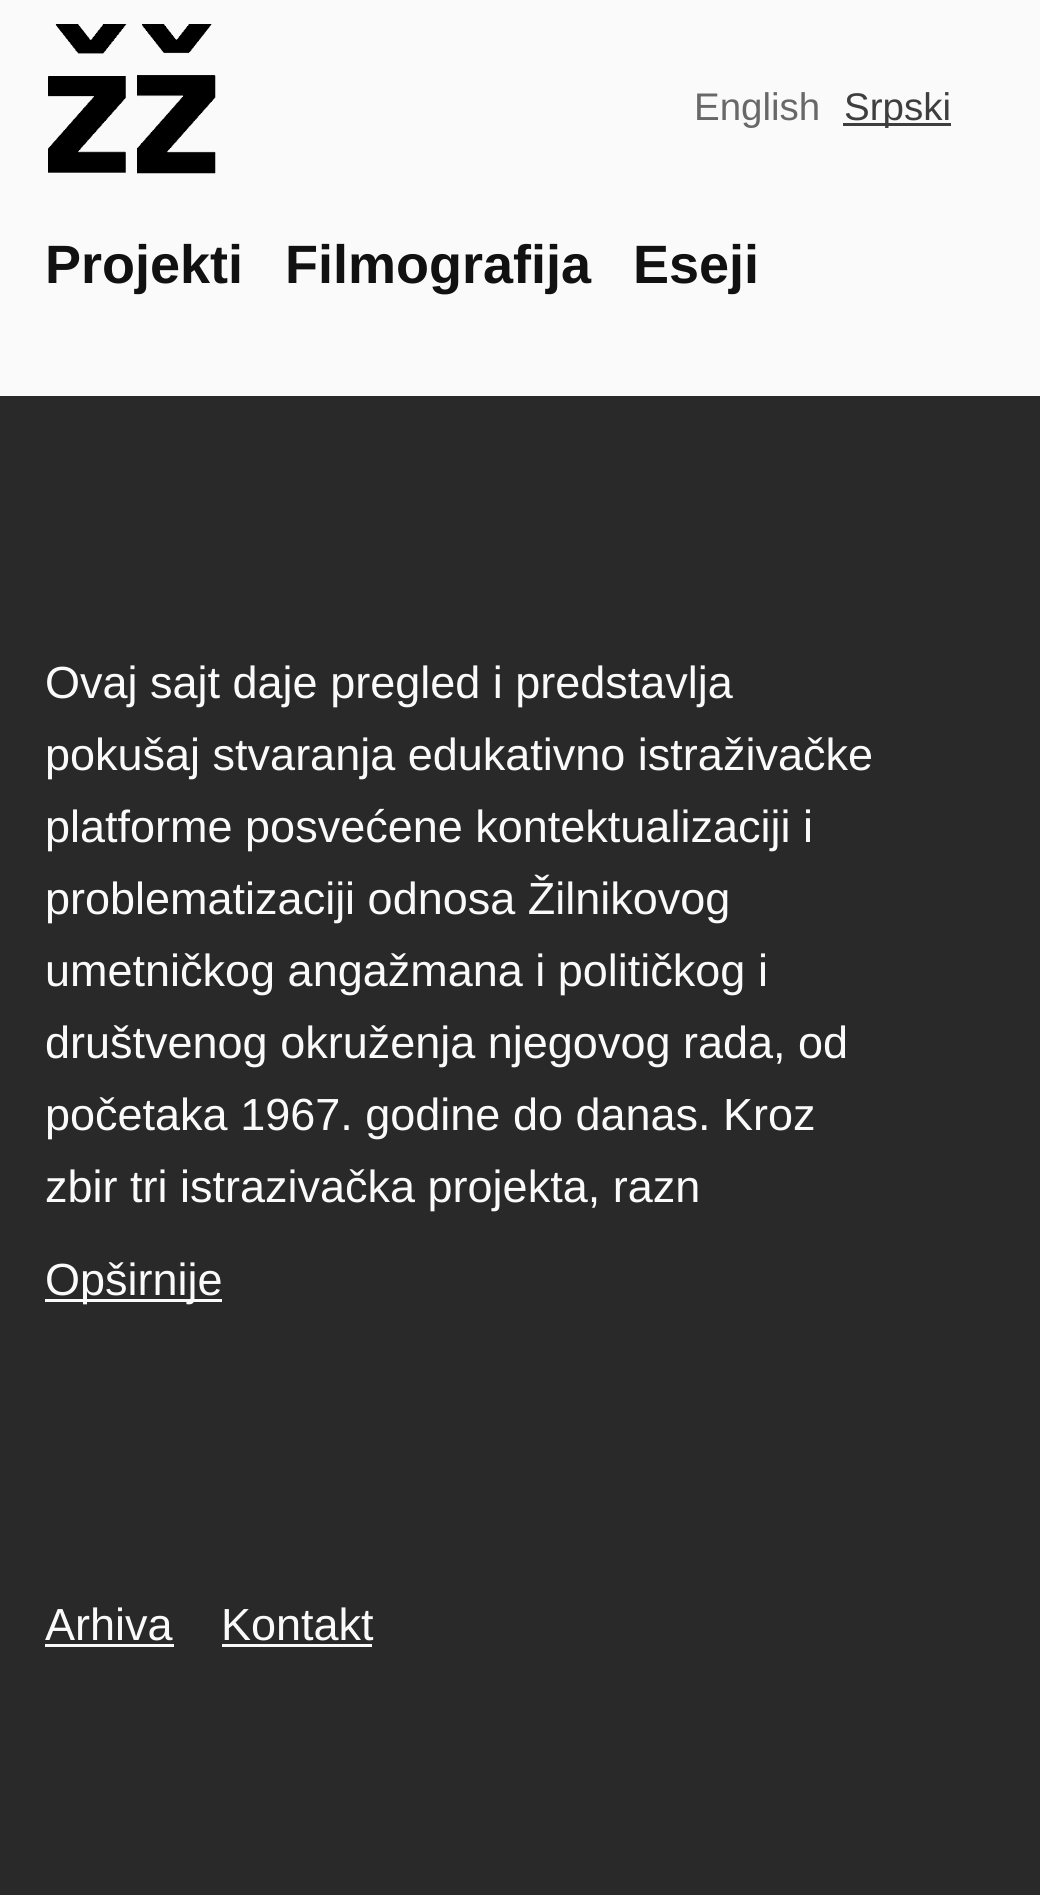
import math
import cairo

surface = cairo.ImageSurface(cairo.FORMAT_RGB24, 1040, 1895)
c = cairo.Context(surface)
options = cairo.FontOptions()
options.set_hint_metrics(cairo.HINT_METRICS_OFF)
options.set_hint_style(cairo.HINT_STYLE_NONE)
c.set_font_options(options)
c.set_miter_limit(4)
def C(code):
 c.set_source_rgb(*(v / 255 for v in bytes.fromhex(code[-6:])))
def F(family, size, italic, bold):
 c.select_font_face(family, cairo.FONT_SLANT_ITALIC if italic else cairo.FONT_SLANT_NORMAL, cairo.FONT_WEIGHT_BOLD if bold else cairo.FONT_WEIGHT_NORMAL)
 c.set_font_size(size)
def T(x, y, s):
 c.move_to(x, y)
 c.show_text(s)
def R(x, y, w, h):
 c.rectangle(x, y, w, h)
 c.fill()
def I(path, x, y, w, h):
 c.save()
 c.set_source_surface(cairo.ImageSurface.create_from_png(path), x, y)
 c.rectangle(x, y, w, h)
 c.fill()
 c.restore()
C('fafafa')
c.paint()
I('1.png',48,24,168,150)
F('Liberation Sans',38.5,0,0)
C('686868')
T(694,120,'English')
C('3e3e3e')
R(843,123,108,3)
T(844,120,'Srpski')
F('Liberation Sans',54,0,1)
C('111111')
T(45,283,'Projekti')
T(285,283,'Filmografija')
T(633,283,'Eseji')
C('292929')
R(0,396,1040,1499)
F('Liberation Sans',45,0,0)
C('fafafa')
T(45,698,'Ovaj sajt daje pregled i predstavlja')
T(45,770,'pokušaj stvaranja edukativno istraživačke')
T(45,842,'platforme posvećene kontektualizaciji i')
T(45,914,'problematizaciji odnosa Žilnikovog')
T(45,986,'umetničkog angažmana i političkog i')
T(45,1058,'društvenog okruženja njegovog rada, od')
T(45,1130,'početaka 1967. godine do danas. Kroz')
T(45,1202,'zbir tri istrazivačka projekta, razn')
R(45,1299,177,3)
T(45,1295,'Opširnije')
T(45,1640,'Arhiva')
R(45,1644,129,3)
T(221,1640,'Kontakt')
R(222,1644,150,3)
surface.write_to_png('o.png')
